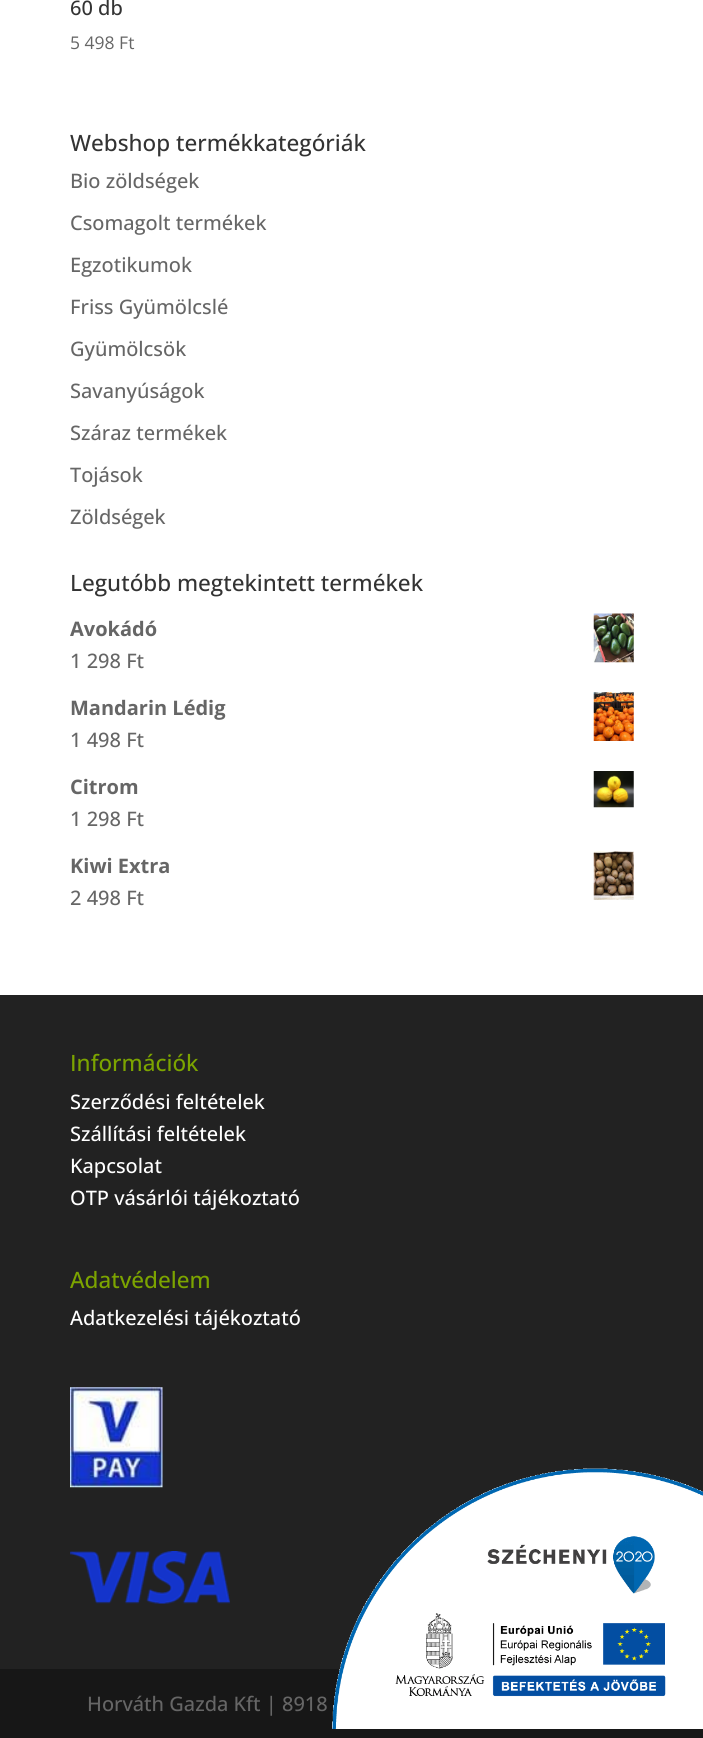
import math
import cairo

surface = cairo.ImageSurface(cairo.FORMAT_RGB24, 703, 1738)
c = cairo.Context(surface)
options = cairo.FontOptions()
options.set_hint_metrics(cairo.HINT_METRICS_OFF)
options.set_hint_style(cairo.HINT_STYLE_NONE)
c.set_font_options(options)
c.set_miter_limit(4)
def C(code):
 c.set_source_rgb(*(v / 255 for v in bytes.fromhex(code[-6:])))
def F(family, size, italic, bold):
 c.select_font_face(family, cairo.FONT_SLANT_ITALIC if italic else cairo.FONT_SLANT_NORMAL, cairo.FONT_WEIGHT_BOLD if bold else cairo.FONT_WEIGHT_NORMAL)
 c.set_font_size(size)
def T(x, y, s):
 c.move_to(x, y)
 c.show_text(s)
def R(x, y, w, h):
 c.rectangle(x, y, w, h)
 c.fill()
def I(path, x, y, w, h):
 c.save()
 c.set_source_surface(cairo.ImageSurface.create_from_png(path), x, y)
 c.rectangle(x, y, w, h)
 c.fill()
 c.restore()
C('ffffff')
c.paint()
F('Open Sans Medium',20,0,0)
C('333333')
T(70,15,'60 db')
F('Open Sans',17.5,0,0)
C('666666')
T(70,49,'5 498 Ft')
F('Open Sans Medium',22.5,0,0)
C('333333')
T(70,151,'Webshop termékkategóriák')
F('Open Sans Medium',20,0,0)
C('666666')
T(70,188,'Bio zöldségek')
T(70,230,'Csomagolt termékek')
T(70,272,'Egzotikumok')
T(70,314,'Friss Gyümölcslé')
T(70,356,'Gyümölcsök')
T(70,398,'Savanyúságok')
T(70,440,'Száraz termékek')
T(70,482,'Tojások')
T(70,524,'Zöldségek')
F('Open Sans Medium',22.5,0,0)
C('333333')
T(70,591,'Legutóbb megtekintett termékek')
F('Open Sans',20,0,1)
C('666666')
T(70,636,'Avokádó')
I('1.png',593,613,41,50)
F('Open Sans Medium',20,0,0)
T(70,668,'1 298 Ft')
F('Open Sans',20,0,1)
T(70,715,'Mandarin Lédig')
I('2.png',593,692,41,49)
F('Open Sans Medium',20,0,0)
T(70,747,'1 498 Ft')
F('Open Sans',20,0,1)
T(70,794,'Citrom')
I('3.png',593,771,41,37)
F('Open Sans Medium',20,0,0)
T(70,826,'1 298 Ft')
F('Open Sans',20,0,1)
T(70,873,'Kiwi Extra')
I('4.png',593,851,41,49)
F('Open Sans Medium',20,0,0)
T(70,905,'2 498 Ft')
C('222222')
R(0,995,703,674)
F('Open Sans Medium',22.5,0,0)
C('7ca400')
T(70,1071,'Információk')
F('Open Sans Medium',20,0,0)
C('ffffff')
T(70,1109,'Szerződési feltételek')
T(70,1141,'Szállítási feltételek')
T(70,1173,'Kapcsolat')
T(70,1205,'OTP vásárlói tájékoztató')
F('Open Sans Medium',22.5,0,0)
C('7ca400')
T(70,1288,'Adatvédelem')
F('Open Sans Medium',20,0,0)
C('ffffff')
T(70,1325,'Adatkezelési tájékoztató')
I('5.png',70,1387,93,101)
I('6.png',70,1551,160,53)
C('171717')
R(0,1669,703,69)
C('666666')
T(87,1711,'Horváth Gazda Kft | 8918')
I('7.png',332,1468,371,261)
surface.write_to_png('o.png')
